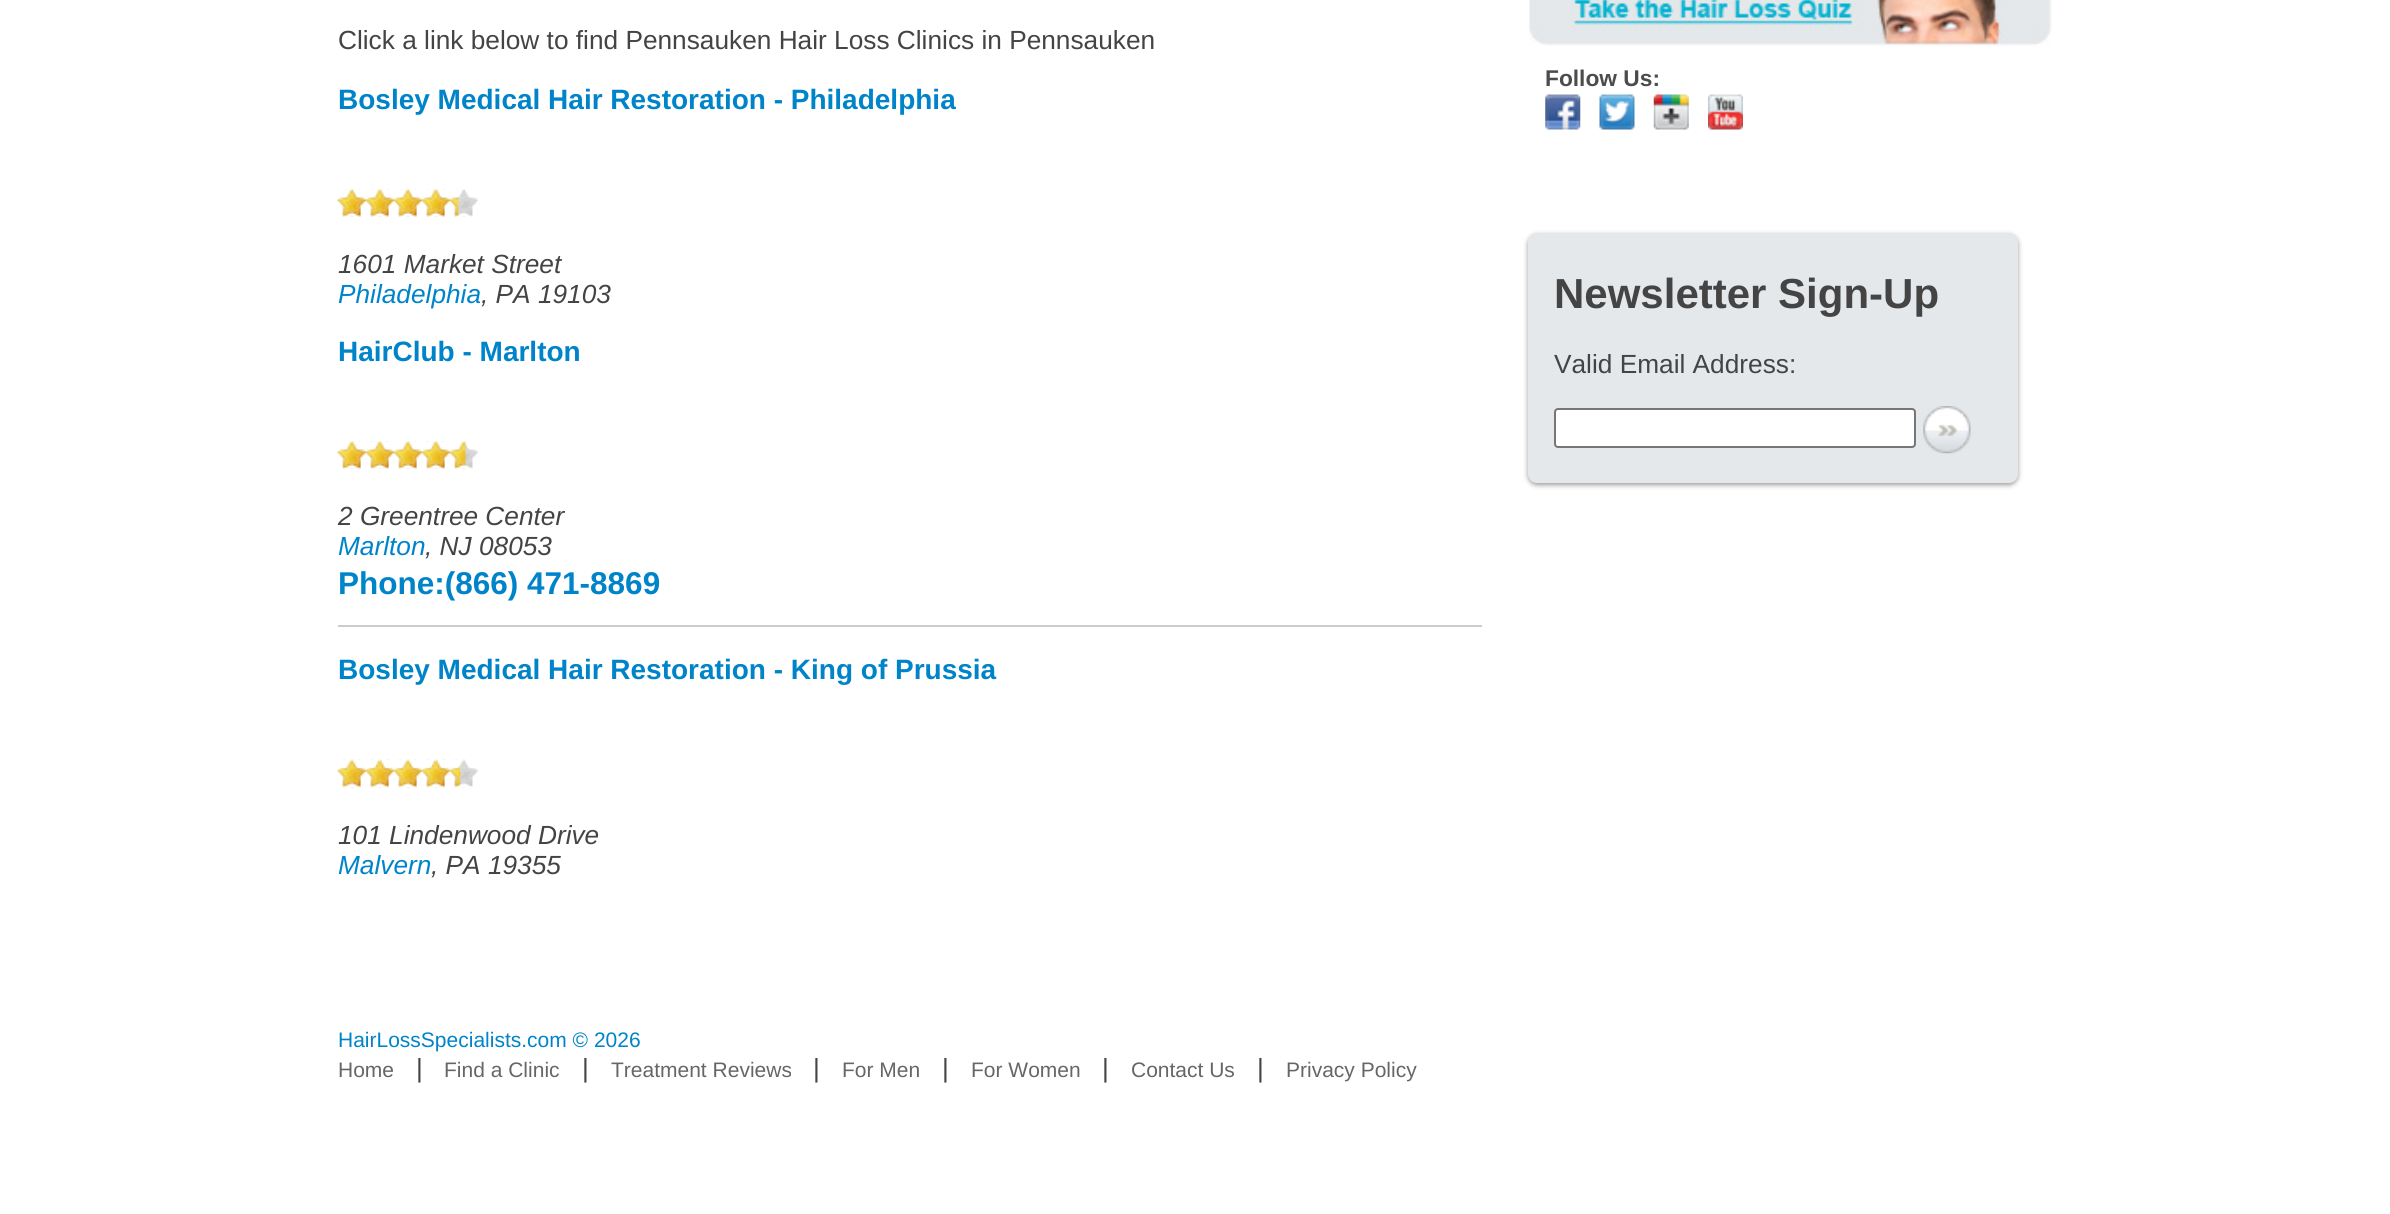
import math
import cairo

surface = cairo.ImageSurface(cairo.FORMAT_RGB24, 2390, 1214)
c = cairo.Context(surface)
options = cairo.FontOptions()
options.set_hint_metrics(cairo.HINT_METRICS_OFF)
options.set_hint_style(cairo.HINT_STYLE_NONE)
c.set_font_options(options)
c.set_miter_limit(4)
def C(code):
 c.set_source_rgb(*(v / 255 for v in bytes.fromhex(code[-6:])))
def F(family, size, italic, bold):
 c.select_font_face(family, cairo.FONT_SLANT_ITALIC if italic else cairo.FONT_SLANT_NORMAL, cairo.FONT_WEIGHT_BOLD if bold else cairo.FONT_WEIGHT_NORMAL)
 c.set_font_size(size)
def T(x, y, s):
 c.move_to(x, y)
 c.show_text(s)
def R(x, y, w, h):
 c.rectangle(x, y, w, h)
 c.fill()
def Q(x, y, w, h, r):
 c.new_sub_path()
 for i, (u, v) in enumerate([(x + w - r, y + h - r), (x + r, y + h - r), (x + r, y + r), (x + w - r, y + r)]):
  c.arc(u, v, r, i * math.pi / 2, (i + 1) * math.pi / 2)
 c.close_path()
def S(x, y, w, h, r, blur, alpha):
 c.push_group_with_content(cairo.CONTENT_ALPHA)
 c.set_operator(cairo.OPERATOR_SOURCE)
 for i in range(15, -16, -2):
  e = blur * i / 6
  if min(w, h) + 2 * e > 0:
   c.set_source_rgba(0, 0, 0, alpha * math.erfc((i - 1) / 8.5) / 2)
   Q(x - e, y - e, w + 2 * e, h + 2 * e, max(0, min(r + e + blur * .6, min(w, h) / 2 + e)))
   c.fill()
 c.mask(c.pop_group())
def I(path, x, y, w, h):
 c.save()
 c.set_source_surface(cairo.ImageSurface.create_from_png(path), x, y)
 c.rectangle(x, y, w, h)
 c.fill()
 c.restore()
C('ffffff')
c.paint()
F('Liberation Sans',26.25,0,0)
C('444444')
T(338,49,'Click a link below to find Pennsauken Hair Loss Clinics in Pennsauken')
F('Liberation Sans',28,0,1)
C('0084c9')
T(338,109,'Bosley Medical Hair Restoration - Philadelphia')
I('1.png',337,189,141,28)
I('2.png',337,189,122,28)
F('Liberation Sans',26.25,1,0)
C('444444')
T(338,273,'1601 Market Street')
C('0084c9')
T(338,303,'Philadelphia')
C('444444')
T(481,303,', PA 19103')
F('Liberation Sans',28,0,1)
C('0084c9')
T(338,361,'HairClub - Marlton')
I('3.png',337,441,141,28)
I('4.png',337,441,129,28)
F('Liberation Sans',26.25,1,0)
C('444444')
T(338,525,'2 Greentree Center')
C('0084c9')
T(338,555,'Marlton')
C('444444')
T(425,555,', NJ 08053')
C('cccccc')
R(338,625,1144,2)
F('Liberation Sans',31.5,0,1)
C('0084c9')
T(338,594,'Phone:(866) 471-8869')
F('Liberation Sans',28,0,1)
T(338,679,'Bosley Medical Hair Restoration - King of Prussia')
I('5.png',337,759,141,29)
I('6.png',337,759,124,29)
F('Liberation Sans',26.25,1,0)
C('444444')
T(338,844,'101 Lindenwood Drive')
C('0084c9')
T(338,874,'Malvern')
C('444444')
T(431,874,', PA 19355')
I('7.png',1529,0,523,46)
F('Liberation Sans',22.75,0,1)
C('4c4c4c')
T(1545,86,'Follow Us:')
I('8.png',1545,94,36,36)
I('9.png',1599,94,36,36)
I('10.png',1653,94,36,36)
I('11.png',1708,94,35,36)
C('000000')
S(1528,235,490,250,9,2.5,.4)
C('e4e8ea')
Q(1528,233,490,250,9)
c.fill()
F('Liberation Sans',42,0,1)
C('444444')
T(1554,308,'Newsletter Sign-Up')
F('Liberation Sans',26.25,0,0)
T(1554,373,'Valid Email Address:')
C('ffffff')
Q(1555,409,360,38,3)
c.fill_preserve()
C('767676')
c.stroke()
I('12.png',1923,406,48,48)
F('Liberation Sans',21,0,0)
C('0084c9')
T(338,1047,'HairLossSpecialists.com © 2026')
C('666666')
T(338,1077,'Home')
F('Liberation Sans',26.25,0,0)
C('444444')
T(416,1077,'|')
F('Liberation Sans',21,0,0)
C('666666')
T(444,1077,'Find a Clinic')
F('Liberation Sans',26.25,0,0)
C('444444')
T(582,1077,'|')
F('Liberation Sans',21,0,0)
C('666666')
T(611,1077,'Treatment Reviews')
F('Liberation Sans',26.25,0,0)
C('444444')
T(813,1077,'|')
F('Liberation Sans',21,0,0)
C('666666')
T(842,1077,'For Men')
F('Liberation Sans',26.25,0,0)
C('444444')
T(942,1077,'|')
F('Liberation Sans',21,0,0)
C('666666')
T(971,1077,'For Women')
F('Liberation Sans',26.25,0,0)
C('444444')
T(1102,1077,'|')
F('Liberation Sans',21,0,0)
C('666666')
T(1131,1077,'Contact Us')
F('Liberation Sans',26.25,0,0)
C('444444')
T(1257,1077,'|')
F('Liberation Sans',21,0,0)
C('666666')
T(1286,1077,'Privacy Policy')
surface.write_to_png('o.png')
